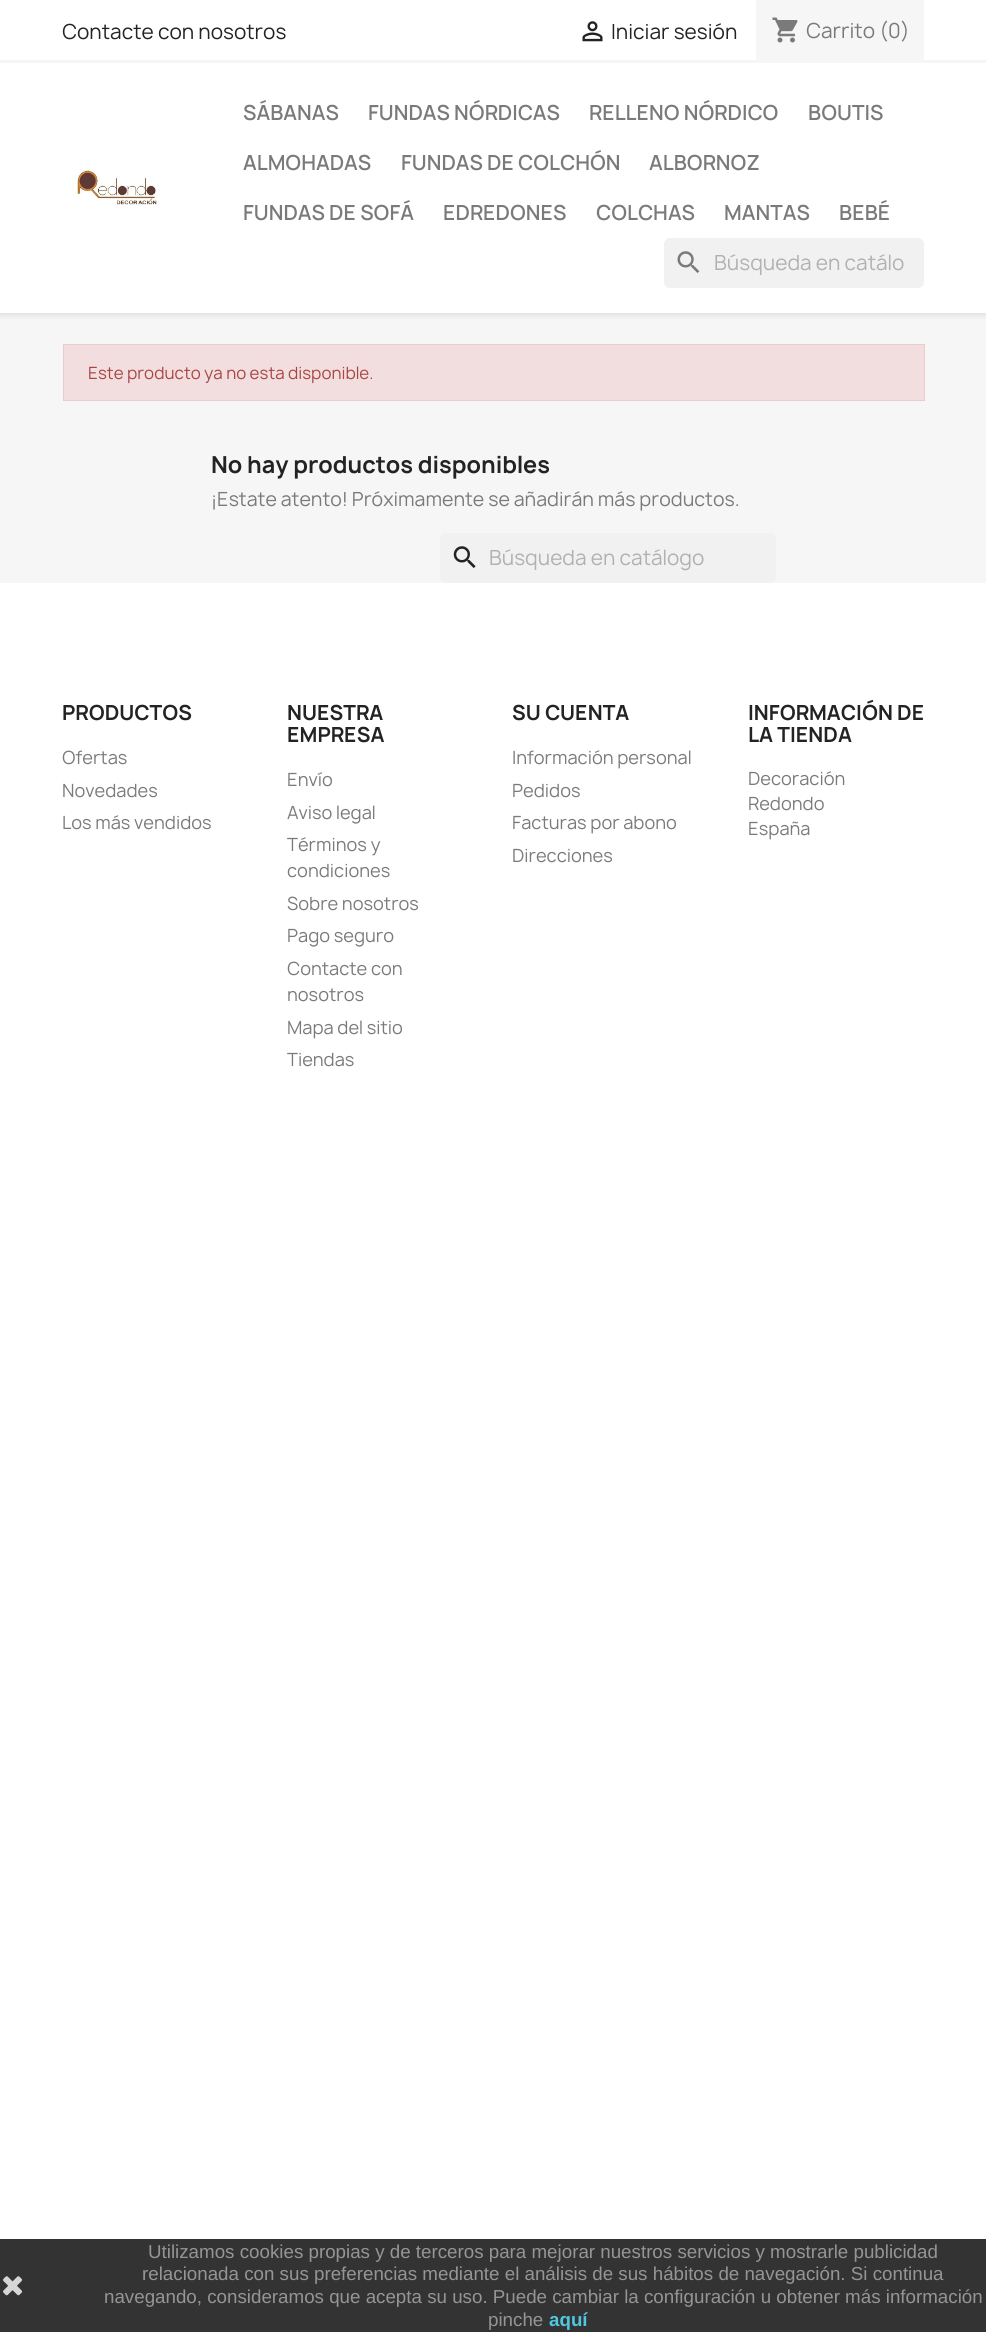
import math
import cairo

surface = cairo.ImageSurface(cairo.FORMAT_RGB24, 986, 2332)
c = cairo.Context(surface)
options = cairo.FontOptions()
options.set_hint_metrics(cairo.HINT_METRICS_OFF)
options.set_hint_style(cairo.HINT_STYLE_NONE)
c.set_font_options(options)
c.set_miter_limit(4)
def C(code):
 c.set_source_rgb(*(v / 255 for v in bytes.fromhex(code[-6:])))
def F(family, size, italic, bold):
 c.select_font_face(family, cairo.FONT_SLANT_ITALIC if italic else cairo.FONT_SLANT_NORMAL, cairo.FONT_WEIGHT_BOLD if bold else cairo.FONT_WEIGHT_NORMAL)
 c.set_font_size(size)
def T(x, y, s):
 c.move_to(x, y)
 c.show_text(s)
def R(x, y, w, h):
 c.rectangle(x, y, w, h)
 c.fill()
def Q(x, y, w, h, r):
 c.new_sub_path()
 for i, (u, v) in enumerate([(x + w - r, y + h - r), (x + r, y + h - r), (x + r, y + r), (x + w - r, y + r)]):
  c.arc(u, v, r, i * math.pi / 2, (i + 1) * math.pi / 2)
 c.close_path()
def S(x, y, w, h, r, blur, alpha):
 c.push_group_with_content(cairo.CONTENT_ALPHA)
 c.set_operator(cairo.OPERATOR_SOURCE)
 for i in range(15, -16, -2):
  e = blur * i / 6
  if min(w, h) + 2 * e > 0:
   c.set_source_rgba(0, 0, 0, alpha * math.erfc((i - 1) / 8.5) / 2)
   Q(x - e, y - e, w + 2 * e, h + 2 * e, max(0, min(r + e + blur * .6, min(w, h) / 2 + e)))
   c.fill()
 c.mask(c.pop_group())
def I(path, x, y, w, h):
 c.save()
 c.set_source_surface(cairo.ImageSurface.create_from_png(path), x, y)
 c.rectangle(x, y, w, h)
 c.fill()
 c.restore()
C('ffffff')
c.paint()
C('f6f6f6')
R(0,313,986,270)
C('000000')
S(0,3,986,312,0,3,.11)
C('ffffff')
R(0,0,986,313)
C('f6f6f6')
R(0,60,986,3)
F('Manrope',20,0,0)
C('232323')
T(62,39,'Contacte con nosotros')
I('1.png',582,21,21,21)
T(611,39,'Iniciar sesión')
C('f6f6f6')
R(756,0,168,60)
I('2.png',772,17,26,26)
C('7a7a7a')
T(806,38,'Carrito (0)')
I('3.png',75,170,82,35)
F('Manrope SemiBold',20,0,0)
T(243,120,'SÁBANAS')
T(368,120,'FUNDAS NÓRDICAS')
T(589,120,'RELLENO NÓRDICO')
T(808,120,'BOUTIS')
T(243,170,'ALMOHADAS')
T(401,170,'FUNDAS DE COLCHÓN')
T(649,170,'ALBORNOZ')
T(243,220,'FUNDAS DE SOFÁ')
T(443,220,'EDREDONES')
T(596,220,'COLCHAS')
T(724,220,'MANTAS')
T(839,220,'BEBÉ')
C('f1f1f1')
Q(664,238,260,50,6)
c.fill()
I('4.png',677,251,23,22)
F('Manrope',20,0,0)
C('b1b1b1')
T(714,270,'Búsqueda en catálo')
C('f2dede')
c.rectangle(63.5,344.5,861,56)
c.fill_preserve()
C('ebcccc')
c.set_line_width(1)
c.stroke()
F('Manrope',16.25,0,0)
C('a94442')
T(88,379,'Este producto ya no esta disponible.')
F('Manrope',22.5,0,1)
C('232323')
T(211,473,'No hay productos disponibles')
F('Manrope',18.75,0,0)
C('7a7a7a')
T(211,506,'¡Estate atento! Próximamente se añadirán más productos.')
C('f1f1f1')
Q(440,533,336,50,6)
c.fill()
I('5.png',453,546,23,22)
F('Manrope',20,0,0)
C('b1b1b1')
T(489,565,'Búsqueda en catálogo')
F('Manrope',20,0,1)
C('232323')
T(62,720,'PRODUCTOS')
F('Manrope',17.5,0,0)
C('7a7a7a')
T(62,764,'Ofertas')
T(62,797,'Novedades')
T(62,829,'Los más vendidos')
F('Manrope',20,0,1)
C('232323')
T(287,720,'NUESTRA')
T(287,742,'EMPRESA')
F('Manrope',17.5,0,0)
C('7a7a7a')
T(287,786,'Envío')
T(287,819,'Aviso legal')
T(287,851,'Términos y')
T(287,877,'condiciones')
T(287,910,'Sobre nosotros')
T(287,942,'Pago seguro')
T(287,975,'Contacte con')
T(287,1001,'nosotros')
T(287,1034,'Mapa del sitio')
T(287,1066,'Tiendas')
F('Manrope',20,0,1)
C('232323')
T(512,720,'SU CUENTA')
F('Manrope',17.5,0,0)
C('7a7a7a')
T(512,764,'Información personal')
T(512,797,'Pedidos')
T(512,829,'Facturas por abono')
T(512,862,'Direcciones')
F('Manrope',20,0,1)
C('232323')
T(748,720,'INFORMACIÓN DE')
T(748,742,'LA TIENDA')
F('Manrope',17.5,0,0)
C('7a7a7a')
T(748,785,'Decoración')
T(748,810,'Redondo')
T(748,835,'España')
C('333333')
R(0,2239,986,93)
I('6.png',3,2276,20,20)
F('Liberation Sans',18.75,0,0)
C('959595')
T(148,2258,'Utilizamos cookies propias y de terceros para mejorar nuestros servicios y mostrarle publicidad')
T(142,2280,'relacionada con sus preferencias mediante el análisis de sus hábitos de navegación. Si continua')
T(104,2303,'navegando, consideramos que acepta su uso. Puede cambiar la configuración u obtener más información')
T(488,2326,'pinche')
F('Liberation Sans',18.75,0,1)
C('50c7df')
T(549,2326,'aquí')
surface.write_to_png('o.png')
